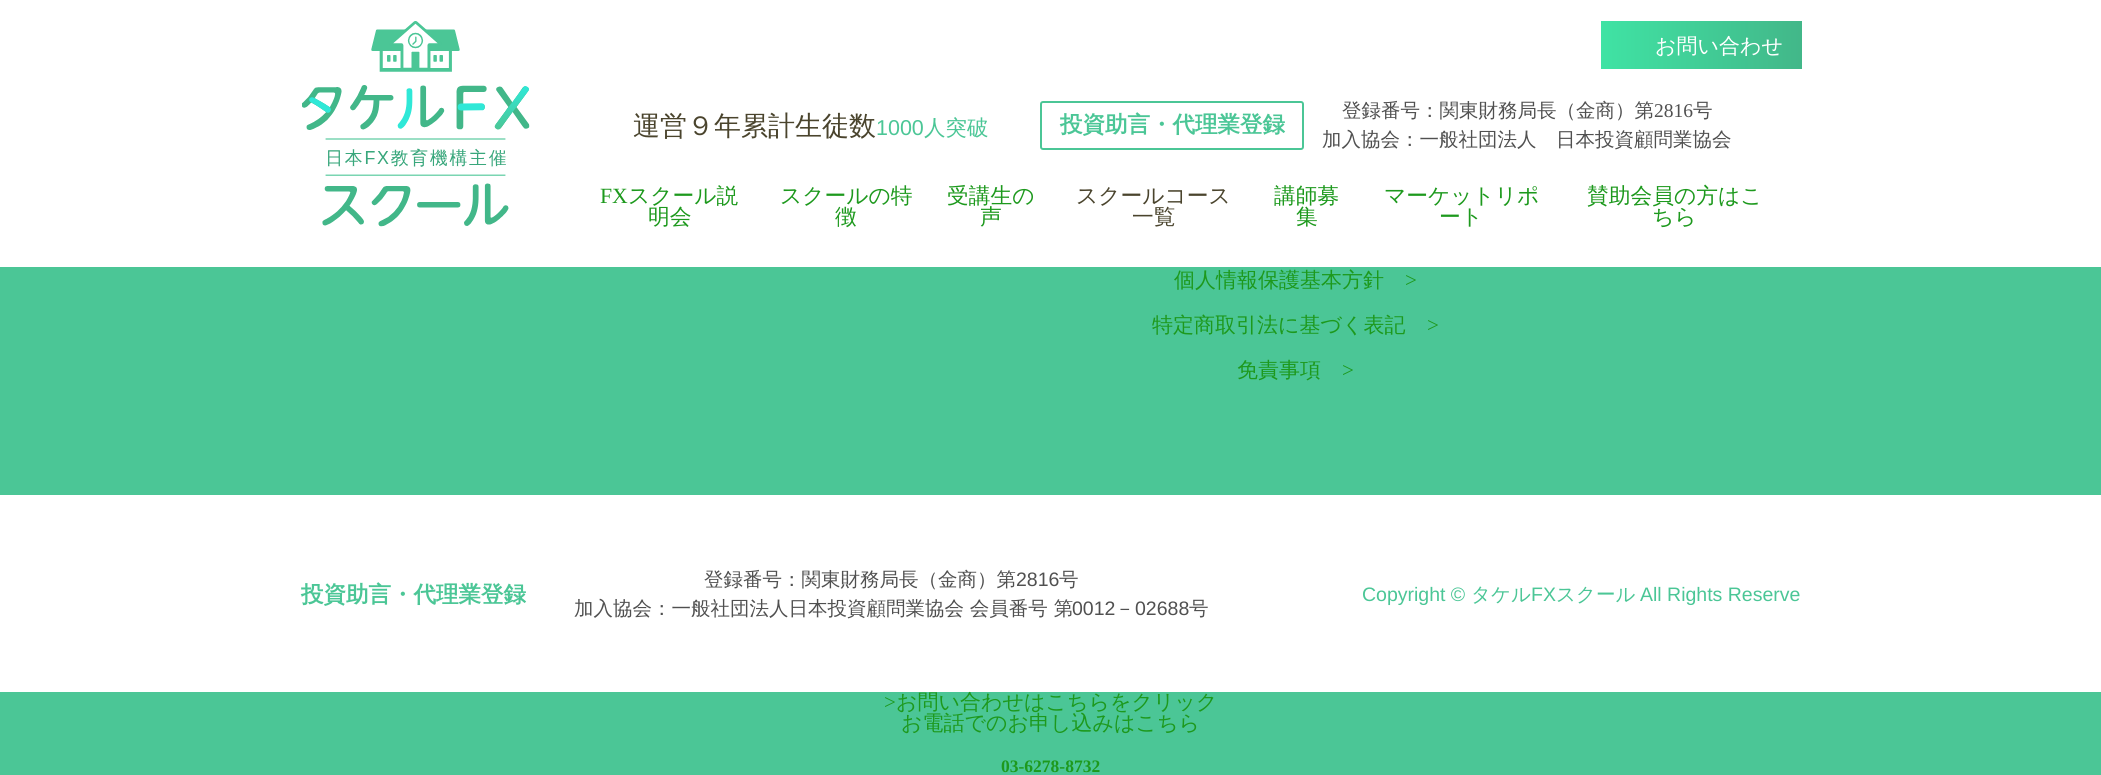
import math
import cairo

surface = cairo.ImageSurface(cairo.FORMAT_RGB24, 2101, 775)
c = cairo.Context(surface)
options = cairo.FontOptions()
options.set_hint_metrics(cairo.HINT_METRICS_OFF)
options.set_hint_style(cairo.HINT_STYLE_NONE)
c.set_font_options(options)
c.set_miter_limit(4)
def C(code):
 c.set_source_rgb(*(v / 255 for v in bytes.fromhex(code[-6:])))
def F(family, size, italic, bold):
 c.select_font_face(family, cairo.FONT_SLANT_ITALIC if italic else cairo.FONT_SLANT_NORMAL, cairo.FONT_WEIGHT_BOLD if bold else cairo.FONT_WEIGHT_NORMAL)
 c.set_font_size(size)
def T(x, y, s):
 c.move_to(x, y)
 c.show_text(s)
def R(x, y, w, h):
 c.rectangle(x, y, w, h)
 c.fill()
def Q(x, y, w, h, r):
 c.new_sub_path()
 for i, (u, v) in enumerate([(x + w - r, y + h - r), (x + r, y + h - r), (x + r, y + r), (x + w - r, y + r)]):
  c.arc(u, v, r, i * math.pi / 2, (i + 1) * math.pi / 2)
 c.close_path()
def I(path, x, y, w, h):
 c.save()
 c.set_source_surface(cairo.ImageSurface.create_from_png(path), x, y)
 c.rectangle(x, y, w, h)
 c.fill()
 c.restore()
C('4bc696')
c.paint()
C('ffffff')
R(0,0,2101,267)
I('1.png',302,21,228,206)
gradient = cairo.LinearGradient(1802,45,1601,45)
gradient.add_color_stop_rgba(0,0.259,0.718,0.537,1)
gradient.add_color_stop_rgba(1,0.251,0.89,0.643,1)
c.set_source(gradient)
R(1601,21,201,48)
F('WenQuanYi Zen Hei Medium',21,0,0)
C('ffffff')
T(1655,53,'お問い合わせ')
F('WenQuanYi Zen Hei Medium',27,0,0)
C('4a442d')
T(633,135,'運営９年累計生徒数')
F('Liberation Sans',21.5,0,0)
C('4bc696')
T(876,135,'1000')
F('WenQuanYi Zen Hei Medium',21.5,0,0)
T(924,135,'人突破')
Q(1041,102,262,47,2)
c.stroke()
F('WenQuanYi Zen Hei',22.5,0,1)
T(1060,132,'投資助言・代理業登録')
F('WenQuanYi Zen Hei Medium',19.5,0,0)
C('505050')
T(1342,117,'登録番号：関東財務局長（金商）第')
F('Liberation Serif',19.5,0,0)
T(1654,117,'2816')
F('WenQuanYi Zen Hei Medium',19.5,0,0)
T(1693,117,'号')
T(1322,146,'加入協会：一般社団法人　日本投資顧問業協会')
F('Liberation Serif',21.75,0,0)
C('1d991d')
T(600,203,'FX')
F('WenQuanYi Zen Hei Medium',21.75,0,0)
T(628,203,'スクール説')
T(648,224,'明会')
T(780,203,'スクールの特')
T(835,224,'徴')
T(947,203,'受講生の')
T(980,224,'声')
C('4a442d')
T(1076,203,'スクールコース')
T(1132,224,'一覧')
C('1d991d')
T(1274,203,'講師募')
T(1296,224,'集')
T(1384,203,'マーケットリポ')
T(1439,224,'ート')
T(1587,203,'賛助会員の方はこ')
T(1652,224,'ちら')
F('WenQuanYi Zen Hei Medium',21,0,0)
T(1174,287,'個人情報保護基本方針')
F('Liberation Serif',21,0,0)
T(1405,287,'>')
F('WenQuanYi Zen Hei Medium',21,0,0)
T(1152,332,'特定商取引法に基づく表記')
F('Liberation Serif',21,0,0)
T(1427,332,'>')
F('WenQuanYi Zen Hei Medium',21,0,0)
T(1237,377,'免責事項')
F('Liberation Serif',21,0,0)
T(1342,377,'>')
C('ffffff')
R(0,495,2101,197)
F('WenQuanYi Zen Hei',22.5,0,1)
C('4bc696')
T(301,602,'投資助言・代理業登録')
F('WenQuanYi Zen Hei Medium',19.5,0,0)
C('505050')
T(704,586,'登録番号：関東財務局長（金商）第')
F('Liberation Sans',19.5,0,0)
T(1016,586,'2816')
F('WenQuanYi Zen Hei Medium',19.5,0,0)
T(1059,586,'号')
T(574,615,'加入協会：一般社団法人日本投資顧問業協会 会員番号 第')
F('Liberation Sans',19.5,0,0)
T(1072,615,'0012')
F('WenQuanYi Zen Hei Medium',19.5,0,0)
T(1115,615,'－')
F('Liberation Sans',19.5,0,0)
T(1135,615,'02688')
F('WenQuanYi Zen Hei Medium',19.5,0,0)
T(1189,615,'号')
F('Liberation Sans',19.5,0,0)
C('4bc696')
T(1362,601,'Copyright ©')
F('WenQuanYi Zen Hei Medium',19.5,0,0)
T(1471,601,'タケル')
F('Liberation Sans',19.5,0,0)
T(1531,601,'FX')
F('WenQuanYi Zen Hei Medium',19.5,0,0)
T(1556,601,'スクール')
F('Liberation Sans',19.5,0,0)
T(1640,601,'All Rights Reserve')
F('Liberation Serif',21,0,0)
C('1d991d')
T(884,709,'>')
F('WenQuanYi Zen Hei Medium',21,0,0)
T(896,709,'お問い合わせはこちらをクリック')
T(901,730,'お電話でのお申し込みはこちら')
F('Liberation Serif',17.5,0,1)
T(1001,772,'03-6278-8732')
surface.write_to_png('o.png')
